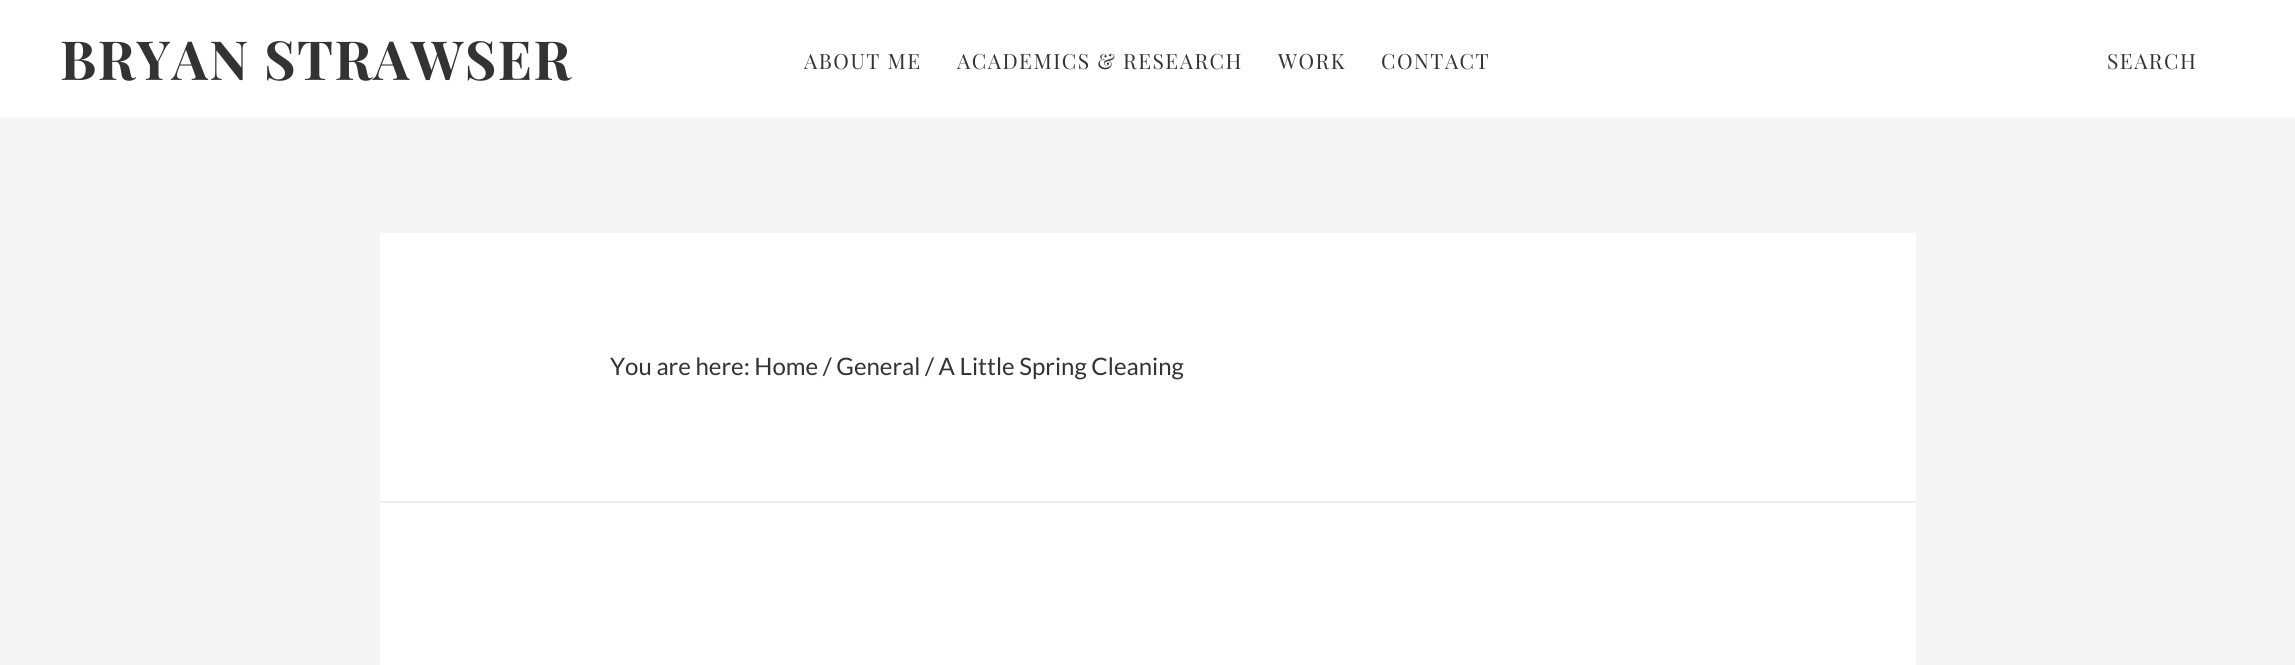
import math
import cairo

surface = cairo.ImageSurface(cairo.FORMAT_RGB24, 2295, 665)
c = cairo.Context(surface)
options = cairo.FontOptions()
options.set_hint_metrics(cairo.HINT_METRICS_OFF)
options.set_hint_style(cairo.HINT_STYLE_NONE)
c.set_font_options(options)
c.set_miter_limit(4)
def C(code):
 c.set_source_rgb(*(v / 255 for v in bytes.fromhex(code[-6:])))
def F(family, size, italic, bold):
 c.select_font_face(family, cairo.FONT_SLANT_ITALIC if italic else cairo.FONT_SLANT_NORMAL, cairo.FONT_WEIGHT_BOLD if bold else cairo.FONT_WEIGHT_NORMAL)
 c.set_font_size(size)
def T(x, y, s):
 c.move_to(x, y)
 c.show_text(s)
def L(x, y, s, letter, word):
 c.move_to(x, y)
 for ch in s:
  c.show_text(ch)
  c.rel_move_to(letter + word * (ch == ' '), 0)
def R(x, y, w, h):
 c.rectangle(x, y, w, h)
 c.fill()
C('f5f5f5')
c.paint()
C('ffffff')
R(0,0,2295,117)
F('Playfair Display',54,0,1)
C('333333')
L(60,80,'BRYAN STRAWSER',1.5,0)
F('Playfair Display',21,0,0)
L(804,69,'ABOUT ME',1.5,0)
L(957,69,'ACADEMICS & RESEARCH',1.5,0)
L(1278,69,'WORK',1.5,0)
L(1381,69,'CONTACT',1.5,0)
L(2107,69,'SEARCH',1.5,0)
C('ffffff')
R(380,233,1536,432)
C('eeeeee')
R(380,501,1536,2)
F('Lato',24,0,0)
C('333333')
T(610,375,'You are here: Home / General / A Little Spring Cleaning')
surface.write_to_png('o.png')
